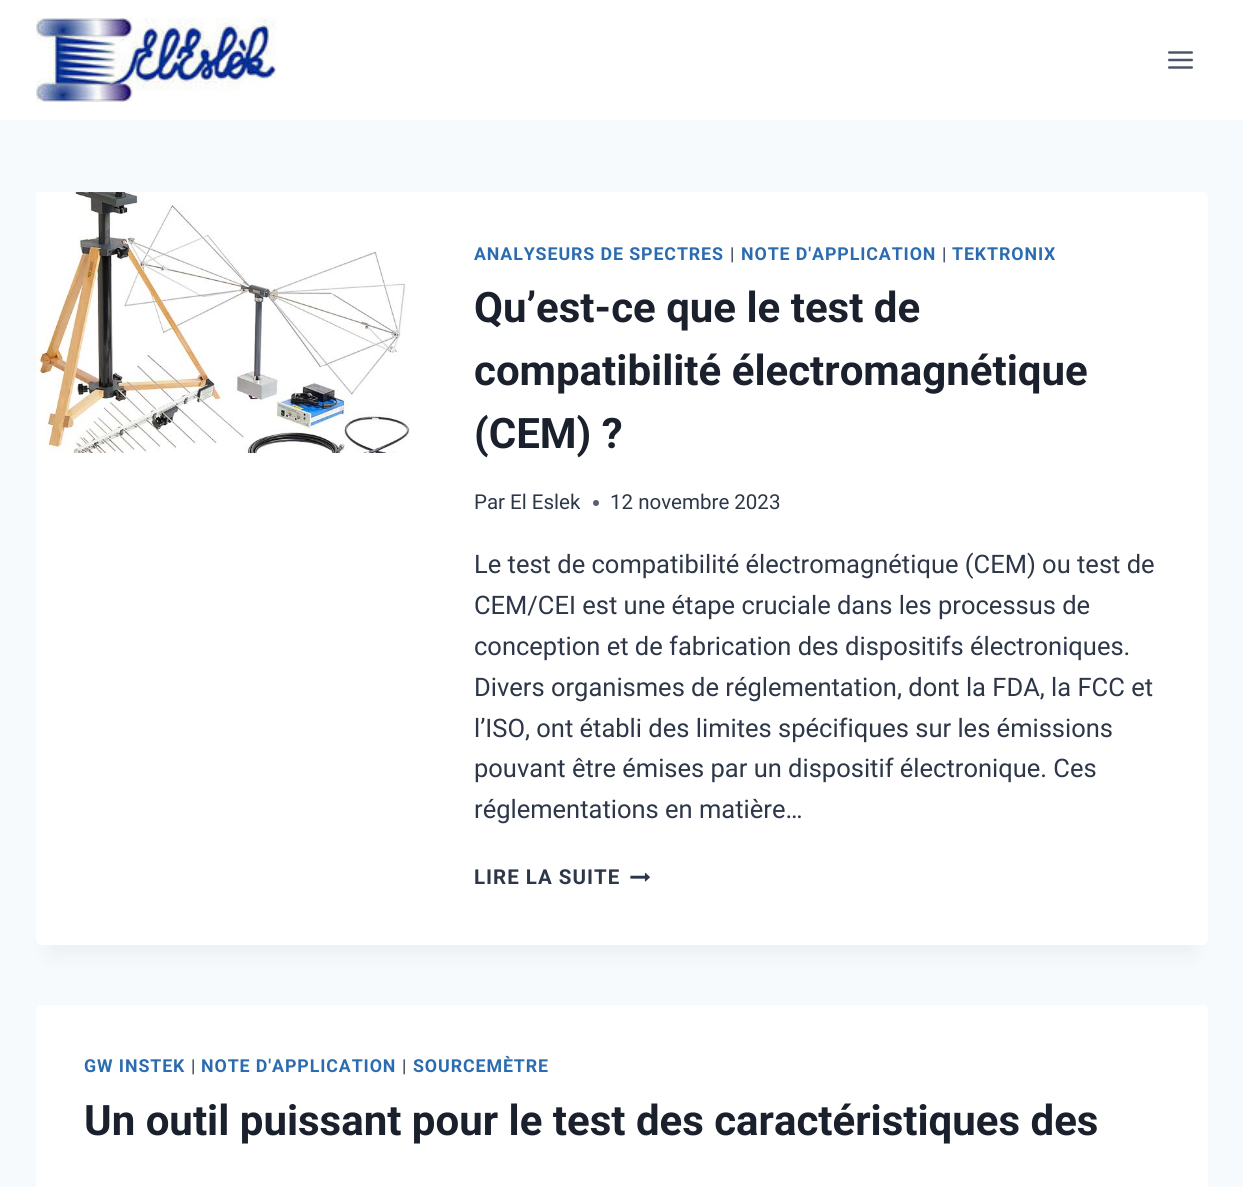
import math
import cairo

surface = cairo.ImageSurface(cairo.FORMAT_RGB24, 1243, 1187)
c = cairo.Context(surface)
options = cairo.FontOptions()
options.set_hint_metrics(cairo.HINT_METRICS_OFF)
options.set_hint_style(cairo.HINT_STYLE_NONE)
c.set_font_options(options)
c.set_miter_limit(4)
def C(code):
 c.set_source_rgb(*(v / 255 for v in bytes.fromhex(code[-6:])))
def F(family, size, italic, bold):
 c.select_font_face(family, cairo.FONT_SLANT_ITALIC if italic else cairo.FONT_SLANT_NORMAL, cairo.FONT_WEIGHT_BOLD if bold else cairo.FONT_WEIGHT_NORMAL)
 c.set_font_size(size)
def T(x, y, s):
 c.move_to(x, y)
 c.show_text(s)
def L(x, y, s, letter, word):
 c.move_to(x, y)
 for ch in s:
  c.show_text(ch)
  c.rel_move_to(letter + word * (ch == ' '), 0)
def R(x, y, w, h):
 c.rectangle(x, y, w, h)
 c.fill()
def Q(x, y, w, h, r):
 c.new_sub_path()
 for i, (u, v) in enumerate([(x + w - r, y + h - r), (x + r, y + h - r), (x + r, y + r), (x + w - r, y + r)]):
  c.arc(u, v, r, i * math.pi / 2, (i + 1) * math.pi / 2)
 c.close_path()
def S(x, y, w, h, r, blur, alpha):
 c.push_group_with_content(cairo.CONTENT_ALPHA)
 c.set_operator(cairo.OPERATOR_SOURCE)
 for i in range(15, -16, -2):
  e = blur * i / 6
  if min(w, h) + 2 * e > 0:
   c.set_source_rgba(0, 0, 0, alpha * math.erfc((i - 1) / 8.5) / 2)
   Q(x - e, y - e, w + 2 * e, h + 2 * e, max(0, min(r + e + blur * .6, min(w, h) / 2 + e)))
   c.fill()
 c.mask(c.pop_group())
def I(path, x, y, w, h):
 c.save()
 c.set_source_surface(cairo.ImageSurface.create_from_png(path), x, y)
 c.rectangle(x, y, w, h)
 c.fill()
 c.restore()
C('f7fafc')
c.paint()
C('ffffff')
R(0,0,1243,120)
I('1.png',36,18,240,84)
I('2.png',1168,51,25,18)
C('000000')
S(51,230,1142,723,0,11,.05)
C('ffffff')
Q(36,192,1172,753,6)
c.fill()
I('3.png',36,192,374,261)
F('Roboto',17.8,0,1)
C('2b6cb0')
L(474,260,'ANALYSEURS DE SPECTRES',.9,0)
F('Roboto',17.8,0,0)
C('2d3748')
L(730,260,'|',.9,0)
F('Roboto',17.8,0,1)
C('2b6cb0')
L(741,260,'NOTE D\'APPLICATION',.9,0)
F('Roboto',17.8,0,0)
C('2d3748')
L(942,260,'|',.9,0)
F('Roboto',17.8,0,1)
C('2b6cb0')
L(952,260,'TEKTRONIX',.9,0)
F('Roboto',42,0,1)
C('1a202c')
T(474,322,'Qu’est-ce que le test de')
T(474,385,'compatibilité électromagnétique')
T(474,448,'(CEM) ?')
F('Roboto',20.5,0,0)
C('2d3748')
T(474,509,'Par El Eslek')
C('575f6d')
c.new_path()
c.arc(596,503,3,0,2 * math.pi)
c.fill()
C('2d3748')
T(610,509,'12 novembre 2023')
F('Roboto',25.5,0,0)
T(474,573,'Le test de compatibilité électromagnétique (CEM) ou test de')
T(474,614,'CEM/CEI est une étape cruciale dans les processus de')
T(474,655,'conception et de fabrication des dispositifs électroniques.')
T(474,696,'Divers organismes de réglementation, dont la FDA, la FCC et')
T(474,737,'l’ISO, ont établi des limites spécifiques sur les émissions')
T(474,777,'pouvant être émises par un dispositif électronique. Ces')
T(474,818,'réglementations en matière…')
F('Roboto',20.5,0,1)
L(474,884,'LIRE LA SUITE',1,0)
I('4.png',630,872,20,10)
C('ffffff')
Q(36,1005,1172,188,6)
c.fill()
F('Roboto',17.8,0,1)
C('2b6cb0')
L(84,1072,'GW INSTEK',.9,0)
F('Roboto',17.8,0,0)
C('2d3748')
L(191,1072,'|',.9,0)
F('Roboto',17.8,0,1)
C('2b6cb0')
L(201,1072,'NOTE D\'APPLICATION',.9,0)
F('Roboto',17.8,0,0)
C('2d3748')
L(402,1072,'|',.9,0)
F('Roboto',17.8,0,1)
C('2b6cb0')
L(413,1072,'SOURCEMÈTRE',.9,0)
F('Roboto',42,0,1)
C('1a202c')
T(84,1135,'Un outil puissant pour le test des caractéristiques des')
surface.write_to_png('o.png')
